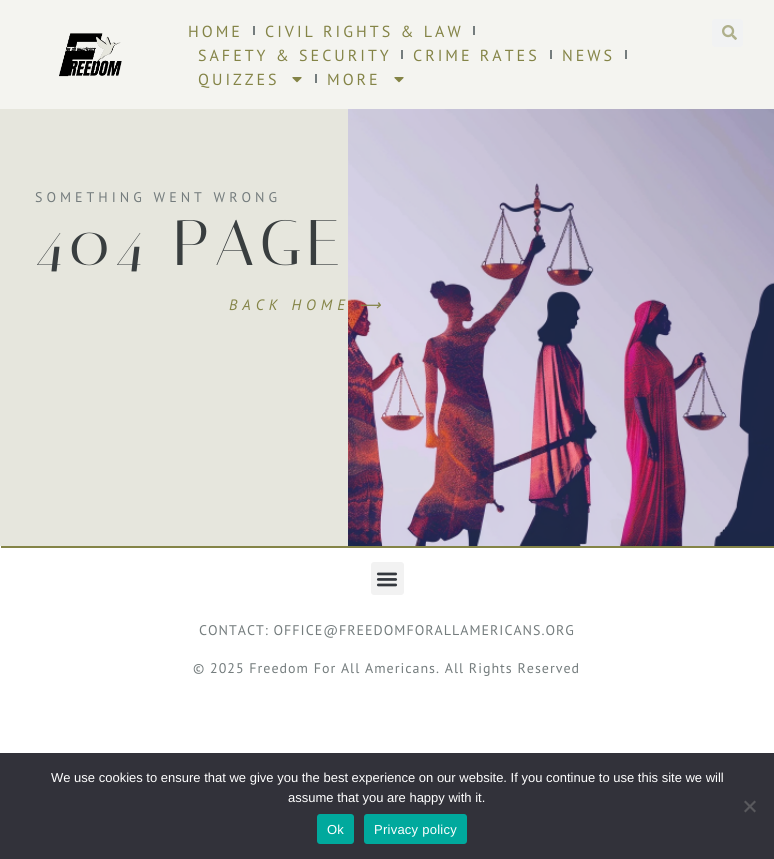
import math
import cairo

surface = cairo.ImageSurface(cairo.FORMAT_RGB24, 774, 859)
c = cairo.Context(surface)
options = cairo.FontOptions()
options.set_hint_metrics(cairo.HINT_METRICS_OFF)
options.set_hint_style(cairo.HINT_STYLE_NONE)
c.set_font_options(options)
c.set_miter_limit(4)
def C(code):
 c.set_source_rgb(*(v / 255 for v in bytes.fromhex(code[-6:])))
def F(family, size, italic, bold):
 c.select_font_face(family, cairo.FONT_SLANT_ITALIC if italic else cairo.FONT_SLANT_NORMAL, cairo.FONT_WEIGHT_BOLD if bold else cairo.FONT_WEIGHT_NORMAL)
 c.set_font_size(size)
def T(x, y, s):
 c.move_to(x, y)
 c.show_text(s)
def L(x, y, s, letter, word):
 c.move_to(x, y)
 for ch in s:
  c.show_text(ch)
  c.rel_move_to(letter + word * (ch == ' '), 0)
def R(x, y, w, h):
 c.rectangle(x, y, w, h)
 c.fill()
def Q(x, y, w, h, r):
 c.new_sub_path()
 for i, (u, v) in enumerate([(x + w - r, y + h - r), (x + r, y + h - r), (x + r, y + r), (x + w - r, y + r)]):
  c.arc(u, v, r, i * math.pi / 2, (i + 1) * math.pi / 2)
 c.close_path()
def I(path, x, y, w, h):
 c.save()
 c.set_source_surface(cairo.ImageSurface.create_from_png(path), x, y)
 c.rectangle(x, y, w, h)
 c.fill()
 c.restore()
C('ffffff')
c.paint()
C('f4f4f0')
R(0,0,774,109)
I('1.png',59,33,63,44)
F('PT Sans',16,0,0)
C('848447')
L(188,37,'HOME',3,0)
C('747c7d')
R(253,26,2,9)
C('848447')
L(265,37,'CIVIL RIGHTS & LAW',3,0)
C('747c7d')
R(473,26,2,9)
C('848447')
L(198,61,'SAFETY & SECURITY',3,0)
C('747c7d')
R(401,50,2,9)
C('848447')
L(413,61,'CRIME RATES',3,0)
C('747c7d')
R(550,50,2,9)
C('848447')
L(562,61,'NEWS',3,0)
C('747c7d')
R(625,50,2,9)
C('848447')
L(198,85,'QUIZZES',3,0)
I('2.png',292,77,10,6)
C('747c7d')
R(315,74,2,9)
C('848447')
L(327,85,'MORE',3,0)
I('2.png',394,77,10,6)
C('f1f2f3')
Q(712,19,31,28,3)
c.fill()
I('3.png',722,25,15,15)
C('e6e6dd')
R(0,109,348,437)
F('PT Sans',14,0,0)
C('747c7d')
L(35,202,'SOMETHING WENT WRONG',4,0)
F('Italiana',64.25,0,0)
C('393e3f')
L(35,265,'404 PAGE',5,0)
F('PT Sans',15,1,0)
C('848447')
L(229,310,'BACK HOME',5,0)
I('4.png',348,109,426,437)
F('DejaVu Sans',15,1,0)
L(359,310,'⟶',5,0)
R(1,546,773,2)
C('f2f2f2')
Q(371,562,33,33,3)
c.fill()
I('5.png',376,572,22,15)
F('PT Sans',14,0,0)
C('747c7d')
L(199,635,'CONTACT: OFFICE@FREEDOMFORALLAMERICANS.ORG',1,0)
L(193,673,'© 2025 Freedom For All Americans. All Rights Reserved',1,0)
C('32323a')
R(0,753,774,106)
F('Liberation Sans',13,0,0)
C('ffffff')
T(51,782,'We use cookies to ensure that we give you the best experience on our website. If you continue to use this site we will')
T(288,802,'assume that you are happy with it.')
C('59595d')
c.new_path()
c.move_to(754.5,800.5)
c.line_to(756,802)
c.line_to(745.5,812.5)
c.line_to(744,811)
c.close_path()
c.fill()
c.new_path()
c.move_to(744,802)
c.line_to(745.5,800.5)
c.line_to(756,811)
c.line_to(754.5,812.5)
c.close_path()
c.fill()
C('00a99d')
Q(317,814,37,30,3)
c.fill()
C('ffffff')
L(327,834,'Ok',.25,0)
C('00a99d')
Q(364,814,103,30,3)
c.fill()
C('ffffff')
L(374,834,'Privacy policy',.25,0)
surface.write_to_png('o.png')
